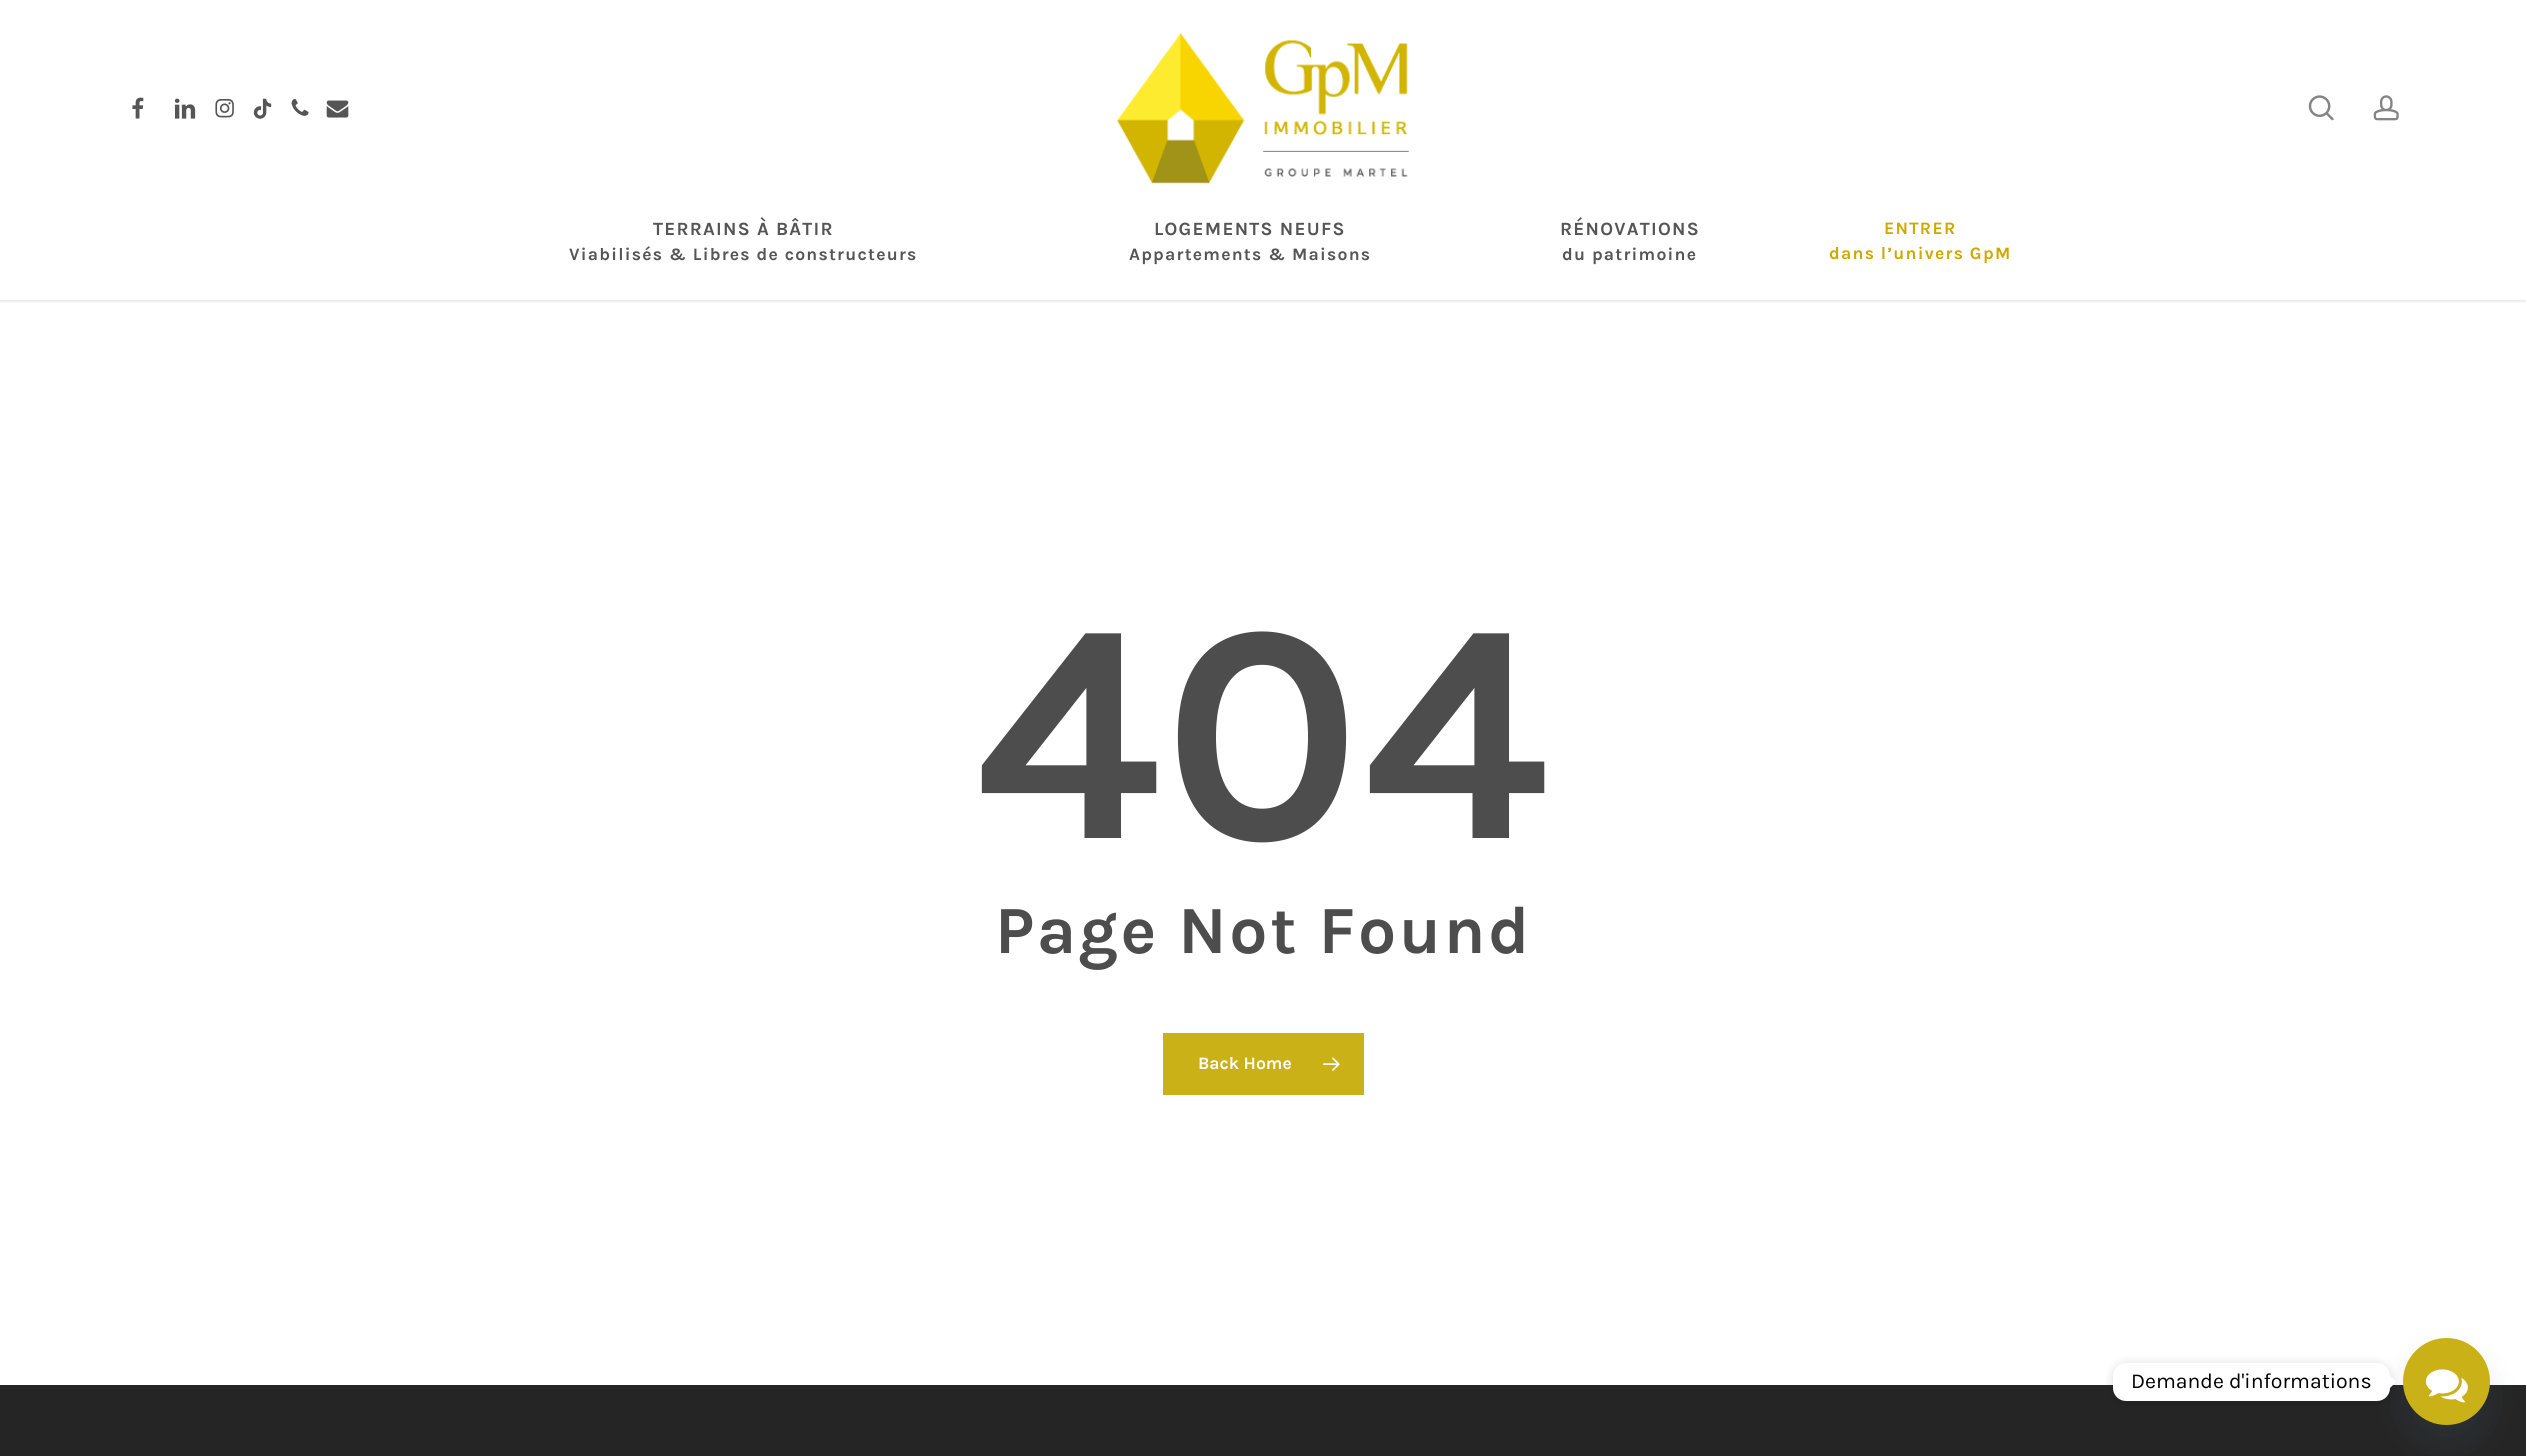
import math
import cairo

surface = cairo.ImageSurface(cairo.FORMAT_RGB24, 2526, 1456)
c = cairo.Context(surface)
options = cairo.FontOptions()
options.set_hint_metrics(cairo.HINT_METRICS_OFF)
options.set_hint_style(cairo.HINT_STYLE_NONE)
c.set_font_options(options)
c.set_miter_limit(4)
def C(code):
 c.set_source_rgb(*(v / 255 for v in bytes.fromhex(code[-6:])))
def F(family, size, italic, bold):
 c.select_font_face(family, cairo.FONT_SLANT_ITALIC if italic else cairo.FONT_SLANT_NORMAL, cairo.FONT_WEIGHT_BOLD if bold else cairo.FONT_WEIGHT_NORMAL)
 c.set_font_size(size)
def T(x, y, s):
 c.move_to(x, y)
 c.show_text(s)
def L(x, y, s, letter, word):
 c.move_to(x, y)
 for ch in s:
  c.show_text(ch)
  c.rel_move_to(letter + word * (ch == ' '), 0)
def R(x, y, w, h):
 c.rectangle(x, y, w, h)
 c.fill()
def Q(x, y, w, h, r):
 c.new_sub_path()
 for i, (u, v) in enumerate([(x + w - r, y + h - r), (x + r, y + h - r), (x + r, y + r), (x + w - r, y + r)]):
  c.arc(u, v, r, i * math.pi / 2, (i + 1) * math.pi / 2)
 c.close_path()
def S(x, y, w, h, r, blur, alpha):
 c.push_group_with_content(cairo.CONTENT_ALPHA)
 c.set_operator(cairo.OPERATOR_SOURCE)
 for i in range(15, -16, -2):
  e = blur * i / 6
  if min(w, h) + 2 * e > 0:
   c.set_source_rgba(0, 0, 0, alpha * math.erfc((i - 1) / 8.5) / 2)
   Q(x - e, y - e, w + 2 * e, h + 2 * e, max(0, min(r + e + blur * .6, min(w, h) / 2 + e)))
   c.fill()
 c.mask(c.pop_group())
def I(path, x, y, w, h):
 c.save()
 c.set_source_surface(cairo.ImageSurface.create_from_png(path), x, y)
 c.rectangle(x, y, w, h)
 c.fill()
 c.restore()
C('ffffff')
c.paint()
c.save()
c.rectangle(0,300,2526,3)
c.clip()
C('000000')
S(0,0,2526,300,0,2,.22)
c.restore()
I('1.png',132,97,12,22)
I('2.png',174,98,22,21)
I('3.png',215,98,19,20)
I('4.png',253,98,19,21)
I('5.png',291,98,18,18)
I('6.png',326,100,23,18)
I('7.png',1117,33,292,151)
I('8.png',2308,95,26,26)
I('9.png',2373,95,26,26)
F('Karla',18.75,0,1)
C('555555')
L(653,235,'TERRAINS À BÂTIR',1.25,0)
F('Karla',17.5,0,1)
L(569,260,'Viabilisés & Libres de constructeurs',1.25,0)
F('Karla',18.75,0,1)
L(1154,235,'LOGEMENTS NEUFS',1.25,0)
F('Karla',17.5,0,1)
L(1129,260,'Appartements & Maisons',1.25,0)
F('Karla',18.75,0,1)
L(1560,235,'RÉNOVATIONS',1.25,0)
F('Karla',17.5,0,1)
L(1562,260,'du patrimoine',1.25,0)
C('d0a700')
L(1884,234,'ENTRER',1.25,0)
L(1829,259,'dans l’univers GpM',1.25,0)
F('Karla',312,0,1)
C('4d4d4d')
L(975,838,'404',2.5,0)
F('Karla',67.5,0,1)
L(995,953,'Page Not Found',2.5,0)
C('cab118')
R(1163,1033,201,62)
F('Karla',17.5,0,1)
C('ffffff')
T(1198,1069,'Back Home')
I('10.png',1323,1057,17,14)
C('252525')
R(0,1385,2526,71)
C('49687e')
S(2403,1358,87,87,43.5,15,.16)
C('cab118')
c.arc(2446.5,1381.5,43.5,0,2 * math.pi)
c.fill()
C('000000')
S(2113,1364,277,39,13,5,.15)
C('ffffff')
Q(2113,1363,277,38,13)
c.fill()
F('Karla',21.25,0,0)
C('000000')
T(2131,1388,'Demande d\'informations')
C('ffffff')
c.new_path()
c.move_to(2390,1388)
c.line_to(2390,1375.5)
c.line_to(2396,1382)
c.close_path()
c.fill()
I('11.png',2425,1369,43,34)
surface.write_to_png('o.png')
